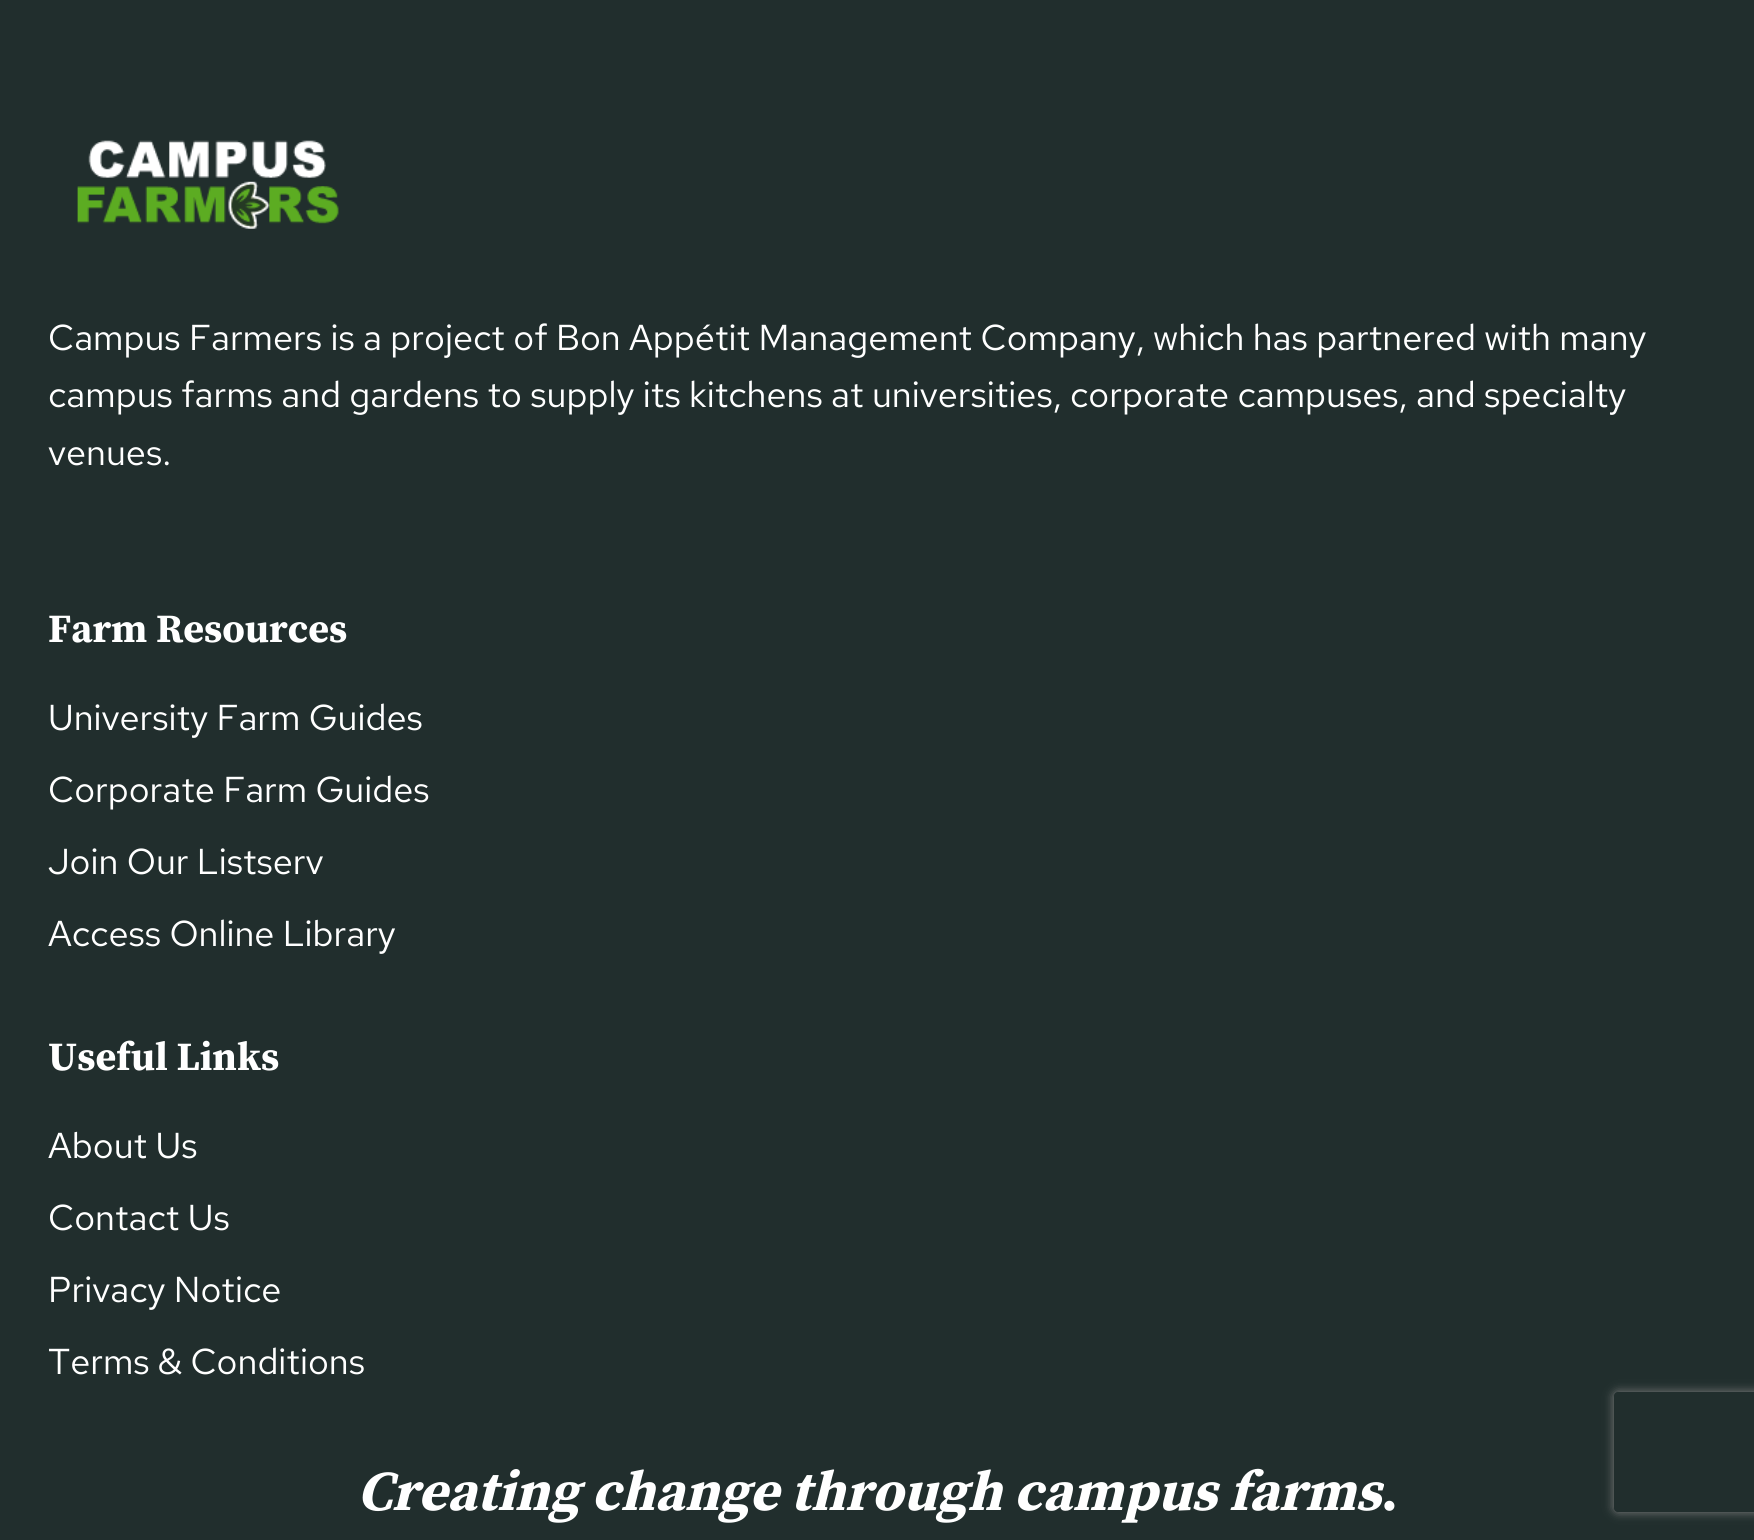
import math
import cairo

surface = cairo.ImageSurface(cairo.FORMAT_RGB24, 1754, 1540)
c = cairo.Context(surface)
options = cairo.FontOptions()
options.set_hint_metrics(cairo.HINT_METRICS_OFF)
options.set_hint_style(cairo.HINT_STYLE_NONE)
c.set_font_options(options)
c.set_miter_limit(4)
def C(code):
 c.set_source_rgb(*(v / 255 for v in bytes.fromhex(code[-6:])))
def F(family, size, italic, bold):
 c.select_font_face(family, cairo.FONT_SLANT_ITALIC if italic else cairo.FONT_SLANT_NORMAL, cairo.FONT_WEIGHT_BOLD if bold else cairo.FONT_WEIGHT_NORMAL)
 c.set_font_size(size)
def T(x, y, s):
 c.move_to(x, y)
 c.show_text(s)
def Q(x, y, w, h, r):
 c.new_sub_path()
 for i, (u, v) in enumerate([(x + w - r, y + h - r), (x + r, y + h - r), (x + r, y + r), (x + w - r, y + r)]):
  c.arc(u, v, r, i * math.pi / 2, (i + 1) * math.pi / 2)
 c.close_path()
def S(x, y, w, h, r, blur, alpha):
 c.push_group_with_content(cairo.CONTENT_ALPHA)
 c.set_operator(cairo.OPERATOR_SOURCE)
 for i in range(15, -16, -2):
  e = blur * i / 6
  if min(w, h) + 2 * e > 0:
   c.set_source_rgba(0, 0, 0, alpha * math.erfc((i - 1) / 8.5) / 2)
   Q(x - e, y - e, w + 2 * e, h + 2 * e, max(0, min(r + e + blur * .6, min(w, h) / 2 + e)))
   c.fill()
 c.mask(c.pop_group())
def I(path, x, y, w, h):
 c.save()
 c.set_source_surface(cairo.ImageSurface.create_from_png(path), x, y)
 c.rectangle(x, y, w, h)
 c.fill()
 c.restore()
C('212e2d')
c.paint()
I('1.png',77,140,262,89)
F('Red Hat Text',36,0,0)
C('ffffff')
T(48,350,'Campus Farmers is a project of Bon Appétit Management Company, which has partnered with many')
T(48,407,'campus farms and gardens to supply its kitchens at universities, corporate campuses, and specialty')
T(48,465,'venues.')
F('Source Serif Pro',40,0,1)
T(48,642,'Farm Resources')
F('Red Hat Text',36,0,0)
T(48,730,'University Farm Guides')
T(48,802,'Corporate Farm Guides')
T(48,874,'Join Our Listserv')
T(48,946,'Access Online Library')
F('Source Serif Pro',40,0,1)
T(48,1070,'Useful Links')
F('Red Hat Text',36,0,0)
T(48,1158,'About Us')
T(48,1230,'Contact Us')
T(48,1302,'Privacy Notice')
T(48,1374,'Terms & Conditions')
F('Source Serif Pro',56,1,1)
T(357,1510,'Creating change through campus farms')
F('Source Serif Pro',56,0,1)
T(1381,1510,'.')
c.save()
c.set_fill_rule(cairo.FILL_RULE_EVEN_ODD)
c.new_path()
c.move_to(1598,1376)
c.line_to(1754,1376)
c.line_to(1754,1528)
c.line_to(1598,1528)
c.close_path()
c.move_to(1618,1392)
c.line_to(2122,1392)
c.curve_to(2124,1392,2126,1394,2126,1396)
c.line_to(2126,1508)
c.curve_to(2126,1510,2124,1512,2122,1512)
c.line_to(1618,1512)
c.curve_to(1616,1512,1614,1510,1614,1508)
c.line_to(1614,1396)
c.curve_to(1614,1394,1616,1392,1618,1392)
c.close_path()
c.clip()
C('808080')
S(1614,1392,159,120,4,5,1)
c.restore()
surface.write_to_png('o.png')
